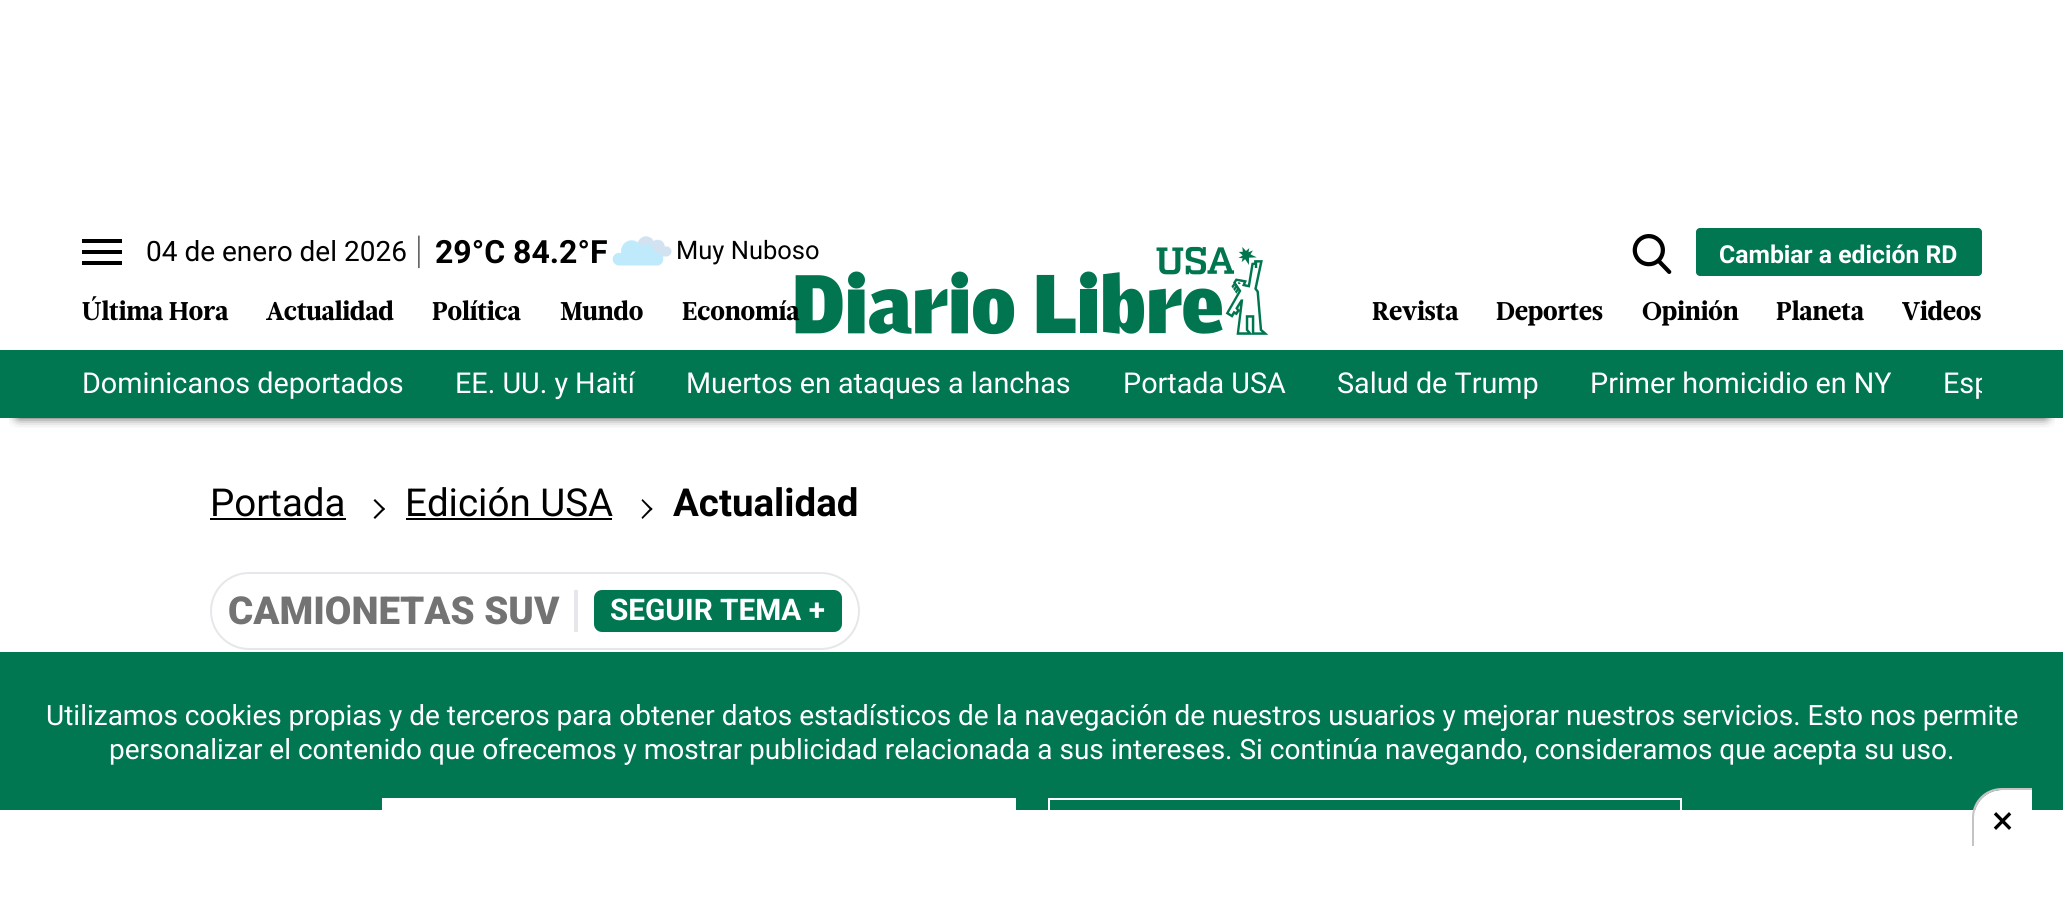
import math
import cairo

surface = cairo.ImageSurface(cairo.FORMAT_RGB24, 2063, 915)
c = cairo.Context(surface)
options = cairo.FontOptions()
options.set_hint_metrics(cairo.HINT_METRICS_OFF)
options.set_hint_style(cairo.HINT_STYLE_NONE)
c.set_font_options(options)
c.set_miter_limit(4)
def C(code):
 c.set_source_rgb(*(v / 255 for v in bytes.fromhex(code[-6:])))
def F(family, size, italic, bold):
 c.select_font_face(family, cairo.FONT_SLANT_ITALIC if italic else cairo.FONT_SLANT_NORMAL, cairo.FONT_WEIGHT_BOLD if bold else cairo.FONT_WEIGHT_NORMAL)
 c.set_font_size(size)
def T(x, y, s):
 c.move_to(x, y)
 c.show_text(s)
def R(x, y, w, h):
 c.rectangle(x, y, w, h)
 c.fill()
def Q(x, y, w, h, r):
 c.new_sub_path()
 for i, (u, v) in enumerate([(x + w - r, y + h - r), (x + r, y + h - r), (x + r, y + r), (x + w - r, y + r)]):
  c.arc(u, v, r, i * math.pi / 2, (i + 1) * math.pi / 2)
 c.close_path()
def S(x, y, w, h, r, blur, alpha):
 c.push_group_with_content(cairo.CONTENT_ALPHA)
 c.set_operator(cairo.OPERATOR_SOURCE)
 for i in range(15, -16, -2):
  e = blur * i / 6
  if min(w, h) + 2 * e > 0:
   c.set_source_rgba(0, 0, 0, alpha * math.erfc((i - 1) / 8.5) / 2)
   Q(x - e, y - e, w + 2 * e, h + 2 * e, max(0, min(r + e + blur * .6, min(w, h) / 2 + e)))
   c.fill()
 c.mask(c.pop_group())
def I(path, x, y, w, h):
 c.save()
 c.set_source_surface(cairo.ImageSurface.create_from_png(path), x, y)
 c.rectangle(x, y, w, h)
 c.fill()
 c.restore()
C('ffffff')
c.paint()
c.save()
c.rectangle(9,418,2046,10)
c.clip()
C('000000')
S(18,238,2028,178,0,6,1)
c.restore()
C('000000')
R(82,239,40,4)
F('Roboto',28,0,0)
T(146,261,'04 de enero del 2026')
F('Roboto Thin',38.5,0,0)
T(415,263,'|')
F('Roboto',32,0,1)
T(435,263,'29°C 84.2°F')
I('1.png',612,236,60,30)
I('7.png',795,246,474,89)
F('Roboto',25.5,0,0)
T(676,259,'Muy Nuboso')
R(82,250,40,4)
R(82,261,40,4)
I('2.png',82,296,147,25)
I('3.png',266,300,128,21)
I('4.png',432,300,89,21)
I('5.png',560,300,83,21)
I('6.png',682,300,118,21)
I('8.png',1632,234,40,40)
C('007651')
Q(1696,228,286,48,4)
c.fill()
F('Roboto',24.75,0,1)
C('ffffff')
T(1719,263,'Cambiar a edición RD')
I('9.png',1372,300,87,21)
I('10.png',1496,302,107,24)
I('11.png',1642,300,97,26)
I('12.png',1776,300,88,21)
I('13.png',1902,300,79,21)
C('007651')
R(0,350,2063,68)
F('Roboto',28.75,0,0)
C('ffffff')
T(82,393,'Dominicanos deportados')
T(455,393,'EE. UU. y Haití')
T(686,393,'Muertos en ataques a lanchas')
T(1123,393,'Portada USA')
T(1337,393,'Salud de Trump')
T(1590,393,'Primer homicidio en NY')
c.save()
c.rectangle(82,350,1900,70)
c.clip()
T(1943,393,'Esp')
c.restore()
F('Roboto',38.5,0,0)
C('000000')
T(210,516,'Portada')
R(210,518,136,2)
c.new_path()
c.move_to(373.5,500.5)
c.line_to(375,499)
c.line_to(385,509)
c.line_to(383.5,510.5)
c.close_path()
c.fill()
c.new_path()
c.move_to(373.5,517.5)
c.line_to(383.5,507.5)
c.line_to(385,509)
c.line_to(375,519)
c.close_path()
c.fill()
T(405,516,'Edición USA')
R(406,518,206,2)
c.new_path()
c.move_to(641.5,500.5)
c.line_to(642.5,499)
c.line_to(652.5,509)
c.line_to(651,510.5)
c.close_path()
c.fill()
c.new_path()
c.move_to(641.5,517.5)
c.line_to(651,507.5)
c.line_to(652.5,509)
c.line_to(642.5,519)
c.close_path()
c.fill()
F('Roboto',38.5,0,1)
T(673,516,'Actualidad')
Q(211,573,648,76,38)
C('e5e7eb')
c.stroke()
F('Roboto Black',38.5,0,0)
C('737373')
T(228,624,'CAMIONETAS SUV')
C('e5e7eb')
R(574,590,4,42)
C('007651')
Q(594,590,248,42,8)
c.fill()
F('Roboto',29.75,0,1)
C('ffffff')
T(610,620,'SEGUIR TEMA +')
C('007651')
R(0,652,2063,158)
F('Roboto',28,0,0)
C('ffffff')
T(46,725,'Utilizamos cookies propias y de terceros para obtener datos estadísticos de la navegación de nuestros usuarios y mejorar nuestros servicios. Esto nos permite')
T(109,759,'personalizar el contenido que ofrecemos y mostrar publicidad relacionada a sus intereses. Si continúa navegando, consideramos que acepta su uso.')
R(382,798,634,12)
c.rectangle(1049,799,632,68)
c.stroke()
c.new_path()
c.move_to(2002,790)
c.line_to(2032,790)
c.line_to(2032,846)
c.line_to(1974,846)
c.line_to(1974,818)
c.curve_to(1974,802.5,1986.5,790,2002,790)
c.close_path()
c.fill()
C('c7c3c3')
c.set_fill_rule(cairo.FILL_RULE_EVEN_ODD)
c.new_path()
c.move_to(2002,788)
c.line_to(2032,788)
c.line_to(2032,846)
c.line_to(1972,846)
c.line_to(1972,818)
c.curve_to(1972,801,1985,788,2002,788)
c.close_path()
c.move_to(2002,790)
c.line_to(2032,790)
c.line_to(2032,846)
c.line_to(1974,846)
c.line_to(1974,818)
c.curve_to(1974,803,1987,790,2002,790)
c.close_path()
c.fill()
F('Roboto',40,0,0)
C('000000')
T(1992,834,'×')
surface.write_to_png('o.png')
